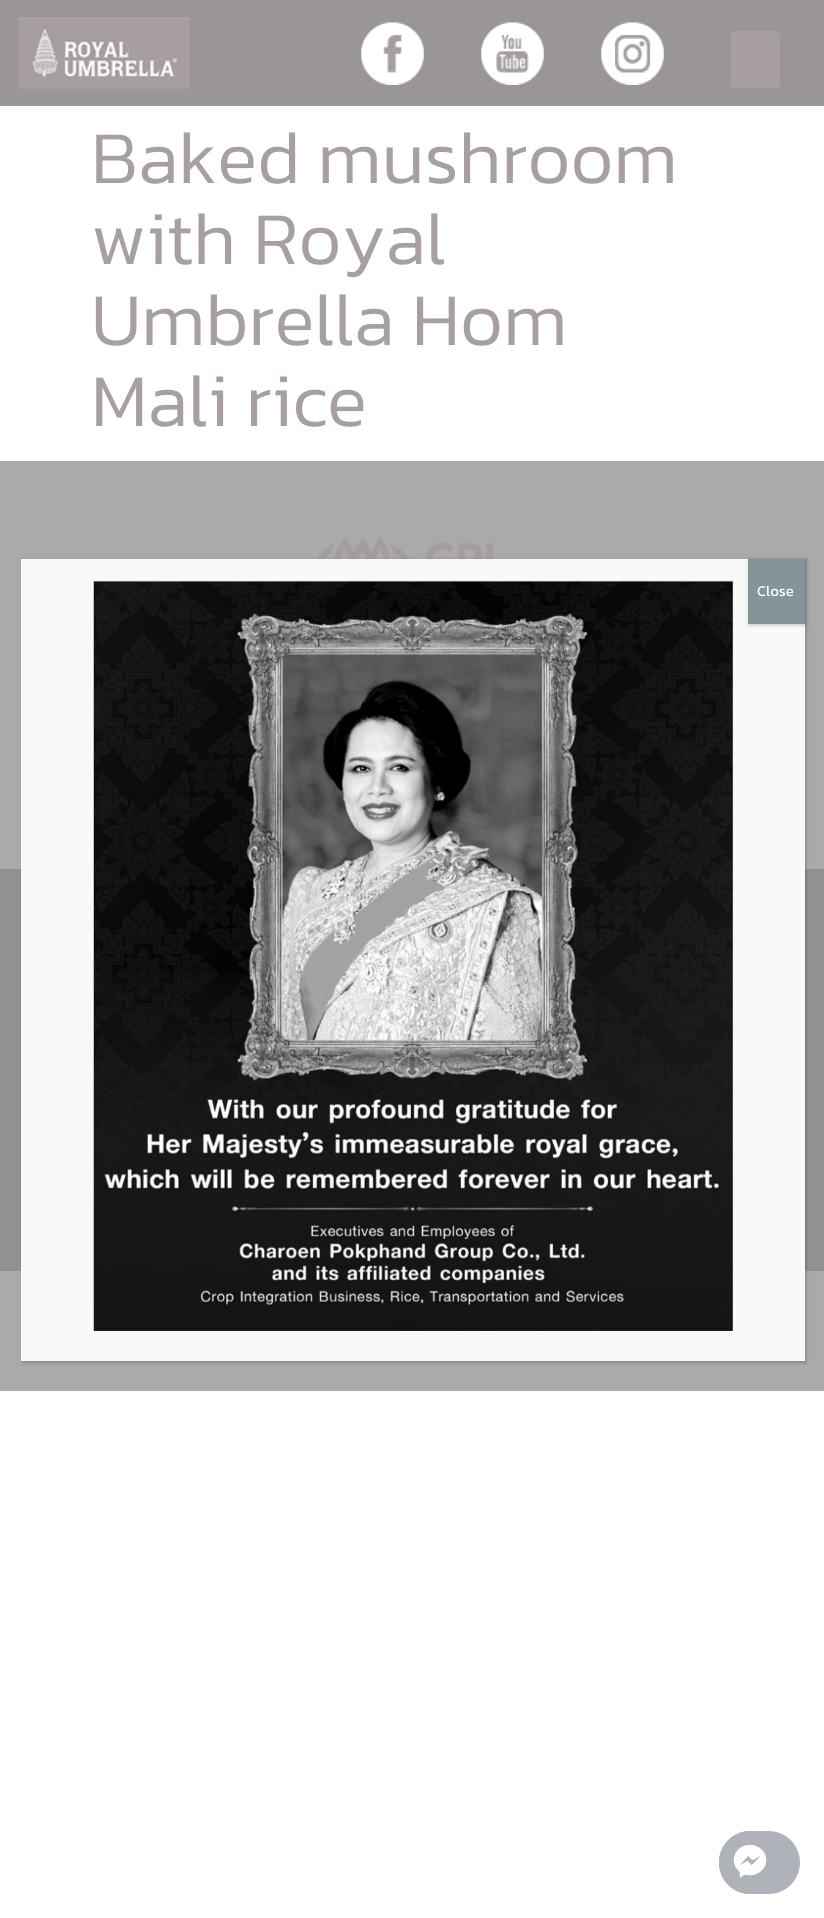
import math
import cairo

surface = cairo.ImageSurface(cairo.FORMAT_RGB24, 824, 1918)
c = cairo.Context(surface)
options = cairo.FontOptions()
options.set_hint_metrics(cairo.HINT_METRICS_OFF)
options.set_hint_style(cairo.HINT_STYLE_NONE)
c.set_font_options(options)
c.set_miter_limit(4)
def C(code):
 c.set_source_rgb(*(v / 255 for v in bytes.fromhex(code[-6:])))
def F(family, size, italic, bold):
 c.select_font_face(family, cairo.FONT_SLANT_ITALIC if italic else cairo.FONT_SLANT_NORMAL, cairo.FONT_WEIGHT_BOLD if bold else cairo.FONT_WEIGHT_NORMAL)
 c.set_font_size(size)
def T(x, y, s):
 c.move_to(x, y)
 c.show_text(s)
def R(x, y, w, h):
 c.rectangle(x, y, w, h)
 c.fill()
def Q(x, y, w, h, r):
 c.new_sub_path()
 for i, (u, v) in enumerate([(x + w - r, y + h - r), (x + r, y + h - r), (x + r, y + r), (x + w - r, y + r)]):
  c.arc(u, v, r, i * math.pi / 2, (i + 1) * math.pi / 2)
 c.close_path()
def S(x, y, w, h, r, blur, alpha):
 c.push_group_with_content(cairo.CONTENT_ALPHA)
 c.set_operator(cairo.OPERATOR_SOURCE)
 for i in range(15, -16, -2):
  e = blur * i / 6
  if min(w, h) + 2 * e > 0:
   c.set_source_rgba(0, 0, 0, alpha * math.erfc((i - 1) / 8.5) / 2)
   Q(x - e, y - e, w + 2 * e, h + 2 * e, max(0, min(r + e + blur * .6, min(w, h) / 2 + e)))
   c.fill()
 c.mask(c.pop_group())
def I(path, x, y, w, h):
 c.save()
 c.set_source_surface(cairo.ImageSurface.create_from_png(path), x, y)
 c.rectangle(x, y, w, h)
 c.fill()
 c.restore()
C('ffffff')
c.paint()
C('9a9596')
R(0,0,824,106)
I('1.png',18,17,172,72)
I('2.png',361,22,63,63)
I('3.png',481,22,63,63)
I('4.png',601,22,63,63)
C('a79f9f')
Q(731,31,49,57,4)
c.fill()
F('Kanit Light',75,0,0)
C('a79fa0')
T(91,183,'Baked mushroom')
T(91,264,'with Royal')
T(91,345,'Umbrella Hom')
T(91,426,'Mali rice')
C('aaaaaa')
R(0,461,824,408)
I('5.png',316,536,178,23)
C('919191')
R(0,869,824,402)
C('aaaaaa')
R(0,1271,824,120)
C('020202')
S(23,560,783,803,0,2,.23)
C('f9f9f9')
R(21,559,784,802)
I('6.png',93,580,640,751)
C('020202')
S(749,560,57,65,0,2,.23)
C('839598')
R(748,559,57,65)
F('Kanit',15,0,0)
C('ffffff')
T(757,596,'Close')
C('afb3b9')
Q(719,1831,81,63,31.5)
c.fill()
Q(719,1831,62,63,31)
c.fill()
I('7.png',733,1844,34,34)
surface.write_to_png('o.png')
